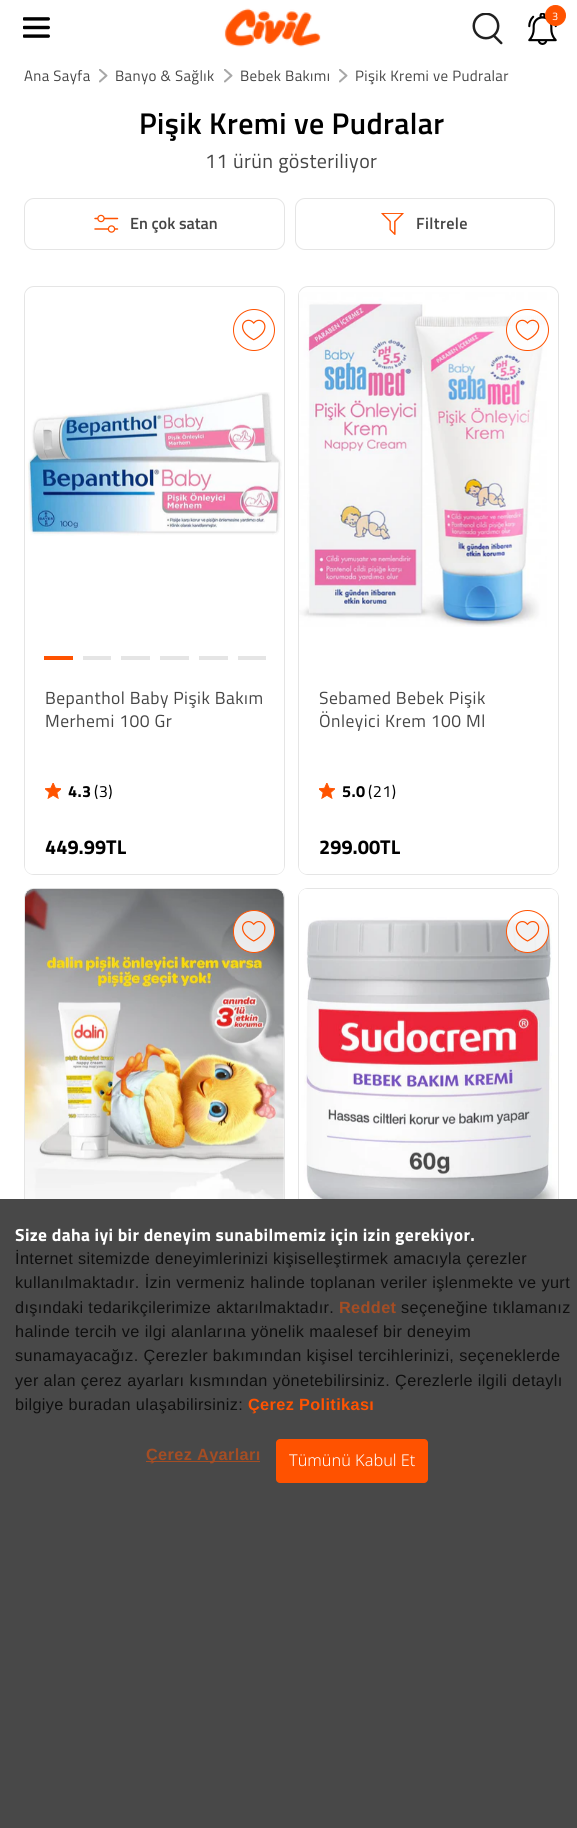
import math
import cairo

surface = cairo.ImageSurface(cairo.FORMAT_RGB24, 577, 1828)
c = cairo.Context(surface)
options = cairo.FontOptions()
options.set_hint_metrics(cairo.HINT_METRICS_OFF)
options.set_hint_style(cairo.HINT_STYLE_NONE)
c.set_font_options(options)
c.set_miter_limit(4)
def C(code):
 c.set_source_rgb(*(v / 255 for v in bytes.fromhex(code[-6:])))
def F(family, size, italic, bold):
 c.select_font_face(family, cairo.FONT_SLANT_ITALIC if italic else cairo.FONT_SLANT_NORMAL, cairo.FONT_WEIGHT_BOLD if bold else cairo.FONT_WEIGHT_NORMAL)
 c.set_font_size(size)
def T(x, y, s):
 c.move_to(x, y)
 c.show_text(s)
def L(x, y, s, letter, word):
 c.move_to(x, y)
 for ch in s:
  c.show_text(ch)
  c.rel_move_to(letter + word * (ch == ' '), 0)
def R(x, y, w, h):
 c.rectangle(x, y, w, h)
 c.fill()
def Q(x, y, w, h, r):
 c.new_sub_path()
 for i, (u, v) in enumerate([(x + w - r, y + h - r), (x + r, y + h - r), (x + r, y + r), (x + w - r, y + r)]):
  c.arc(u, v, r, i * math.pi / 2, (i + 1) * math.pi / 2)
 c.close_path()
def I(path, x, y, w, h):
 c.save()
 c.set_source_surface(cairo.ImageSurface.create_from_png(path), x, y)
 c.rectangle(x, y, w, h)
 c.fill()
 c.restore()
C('ffffff')
c.paint()
I('1.png',23,17,27,21)
I('2.png',224,8,97,39)
I('3.png',472,13,31,32)
I('4.png',528,13,29,32)
C('ff5300')
c.arc(555.5,15.5,10,0,2 * math.pi)
c.fill_preserve()
c.set_line_width(1)
c.stroke()
F('Titillium Web',11,0,0)
C('ffffff')
L(552,20,'3',.38,0)
F('Titillium Web',15,0,0)
C('454545')
L(24,81,'Ana Sayfa',.38,0)
I('5.png',99,69,9,14)
L(115,81,'Banyo & Sağlık',.38,0)
I('5.png',224,69,9,14)
L(240,81,'Bebek Bakımı',.38,0)
I('5.png',339,69,9,14)
L(355,81,'Pişik Kremi ve Pudralar',.38,0)
F('Titillium Web SemiBold',30,0,0)
C('000000')
L(139,134,'Pişik Kremi ve Pudralar',.38,0)
F('Titillium Web',20,0,0)
C('454545')
L(205,168,'11 ürün gösteriliyor',.38,0)
Q(24.5,198.5,260,51,9.5)
C('e5e5e5')
c.stroke()
I('6.png',94,214,25,19)
F('Titillium Web SemiBold',16.25,0,0)
C('454545')
T(130,229,'En çok satan')
Q(295.5,198.5,259,51,9.5)
C('e5e5e5')
c.stroke()
I('7.png',381,213,23,22)
C('454545')
L(416,229,'Filtrele',.38,0)
Q(24.5,286.5,260,588,9.5)
C('e5e5e5')
c.stroke()
C('ffffff')
Q(25,288,259,586,8)
c.fill()
c.arc(254,330,20.5,0,2 * math.pi)
C('ff5200')
c.stroke()
I('8.png',242,319,24,22)
I('9.png',26,392,256,144)
R(44,656,29,4)
C('e5e5e5')
R(83,656,28,4)
R(121,656,29,4)
R(160,656,29,4)
R(199,656,29,4)
R(238,656,28,4)
F('Titillium Web',17.5,0,0)
C('454545')
L(45,704,'Bepanthol Baby Pişik Bakım',.5,0)
L(45,727,'Merhemi 100 Gr',.5,0)
I('10.png',45,783,16,16)
F('Titillium Web',16.25,0,1)
C('000000')
L(68,797,'4.3',.38,0)
F('Titillium Web',16.25,0,0)
L(94,797,'(3)',.38,0)
F('Titillium Web',20,0,1)
T(45,854,'449.99TL')
Q(298.5,286.5,260,588,9.5)
C('e5e5e5')
c.stroke()
C('ffffff')
Q(299,288,259,586,8)
c.fill()
I('11.png',299,292,248,335)
c.set_source_rgba(1,1,1,0.85)
Q(506.5,309.5,42,41,20.5)
c.fill_preserve()
C('ff5200')
c.stroke()
I('12.png',515,319,25,22)
F('Titillium Web',17.5,0,0)
C('454545')
L(319,704,'Sebamed Bebek Pişik',.5,0)
L(319,727,'Önleyici Krem 100 Ml',.5,0)
I('13.png',319,783,16,16)
F('Titillium Web',16.25,0,1)
C('000000')
L(342,797,'5.0',.38,0)
F('Titillium Web',16.25,0,0)
L(368,797,'(21)',.38,0)
F('Titillium Web',20,0,1)
T(319,854,'299.00TL')
Q(24.5,888.5,260,587,9.5)
C('e5e5e5')
c.stroke()
C('ffffff')
Q(25,889,259,586,8)
c.fill()
I('14.png',25,888,259,311)
c.set_source_rgba(1,1,1,0.85)
Q(233.5,910.5,41,42,20.5)
c.fill_preserve()
C('ff5200')
c.stroke()
I('15.png',242,921,24,21)
Q(298.5,888.5,260,587,9.5)
C('e5e5e5')
c.stroke()
C('ffffff')
Q(299,889,259,586,8)
c.fill()
I('16.png',299,889,259,310)
c.set_source_rgba(1,1,1,0.85)
c.arc(527.5,931.5,21,0,2 * math.pi)
c.fill_preserve()
C('ff5200')
c.stroke()
I('17.png',515,921,25,21)
C('484848')
R(0,1199,577,629)
F('Titillium Web',17.5,0,1)
C('ffffff')
L(15,1241,'Size daha iyi bir deneyim sunabilmemiz için izin gerekiyor.',.38,0)
F('Liberation Sans',16.25,0,0)
C('0e0e0e')
L(15,1264,'İnternet sitemizde deneyimlerinizi kişiselleştirmek amacıyla çerezler',.38,0)
L(15,1288,'kullanılmaktadır. İzin vermeniz halinde toplanan veriler işlenmekte ve yurt',.38,0)
L(15,1313,'dışındaki tedarikçilerimize aktarılmaktadır.',.38,0)
F('Liberation Sans',16.25,0,1)
C('a44d24')
L(339,1313,'Reddet',.38,0)
F('Liberation Sans',16.25,0,0)
C('0e0e0e')
L(401,1313,'seçeneğine tıklamanız',.38,0)
L(15,1337,'halinde tercih ve ilgi alanlarına yönelik maalesef bir deneyim',.38,0)
L(15,1361,'sunamayacağız. Çerezler bakımından kişisel tercihlerinizi, seçeneklerde',.38,0)
L(15,1386,'yer alan çerez ayarları kısmından yönetebilirsiniz. Çerezlerle ilgili detaylı',.38,0)
L(15,1410,'bilgiye buradan ulaşabilirsiniz:',.38,0)
F('Liberation Sans',16.25,0,1)
C('ff5200')
L(248,1410,'Çerez Politikası',.38,0)
C('a44d24')
R(146,1461,114,1)
L(146,1460,'Çerez Ayarları',.38,0)
C('ff5200')
Q(276,1439,152,44,4)
c.fill()
F('Noto Sans Light',16.25,0,0)
C('ffffff')
T(289,1466,'Tümünü Kabul Et')
surface.write_to_png('o.png')
